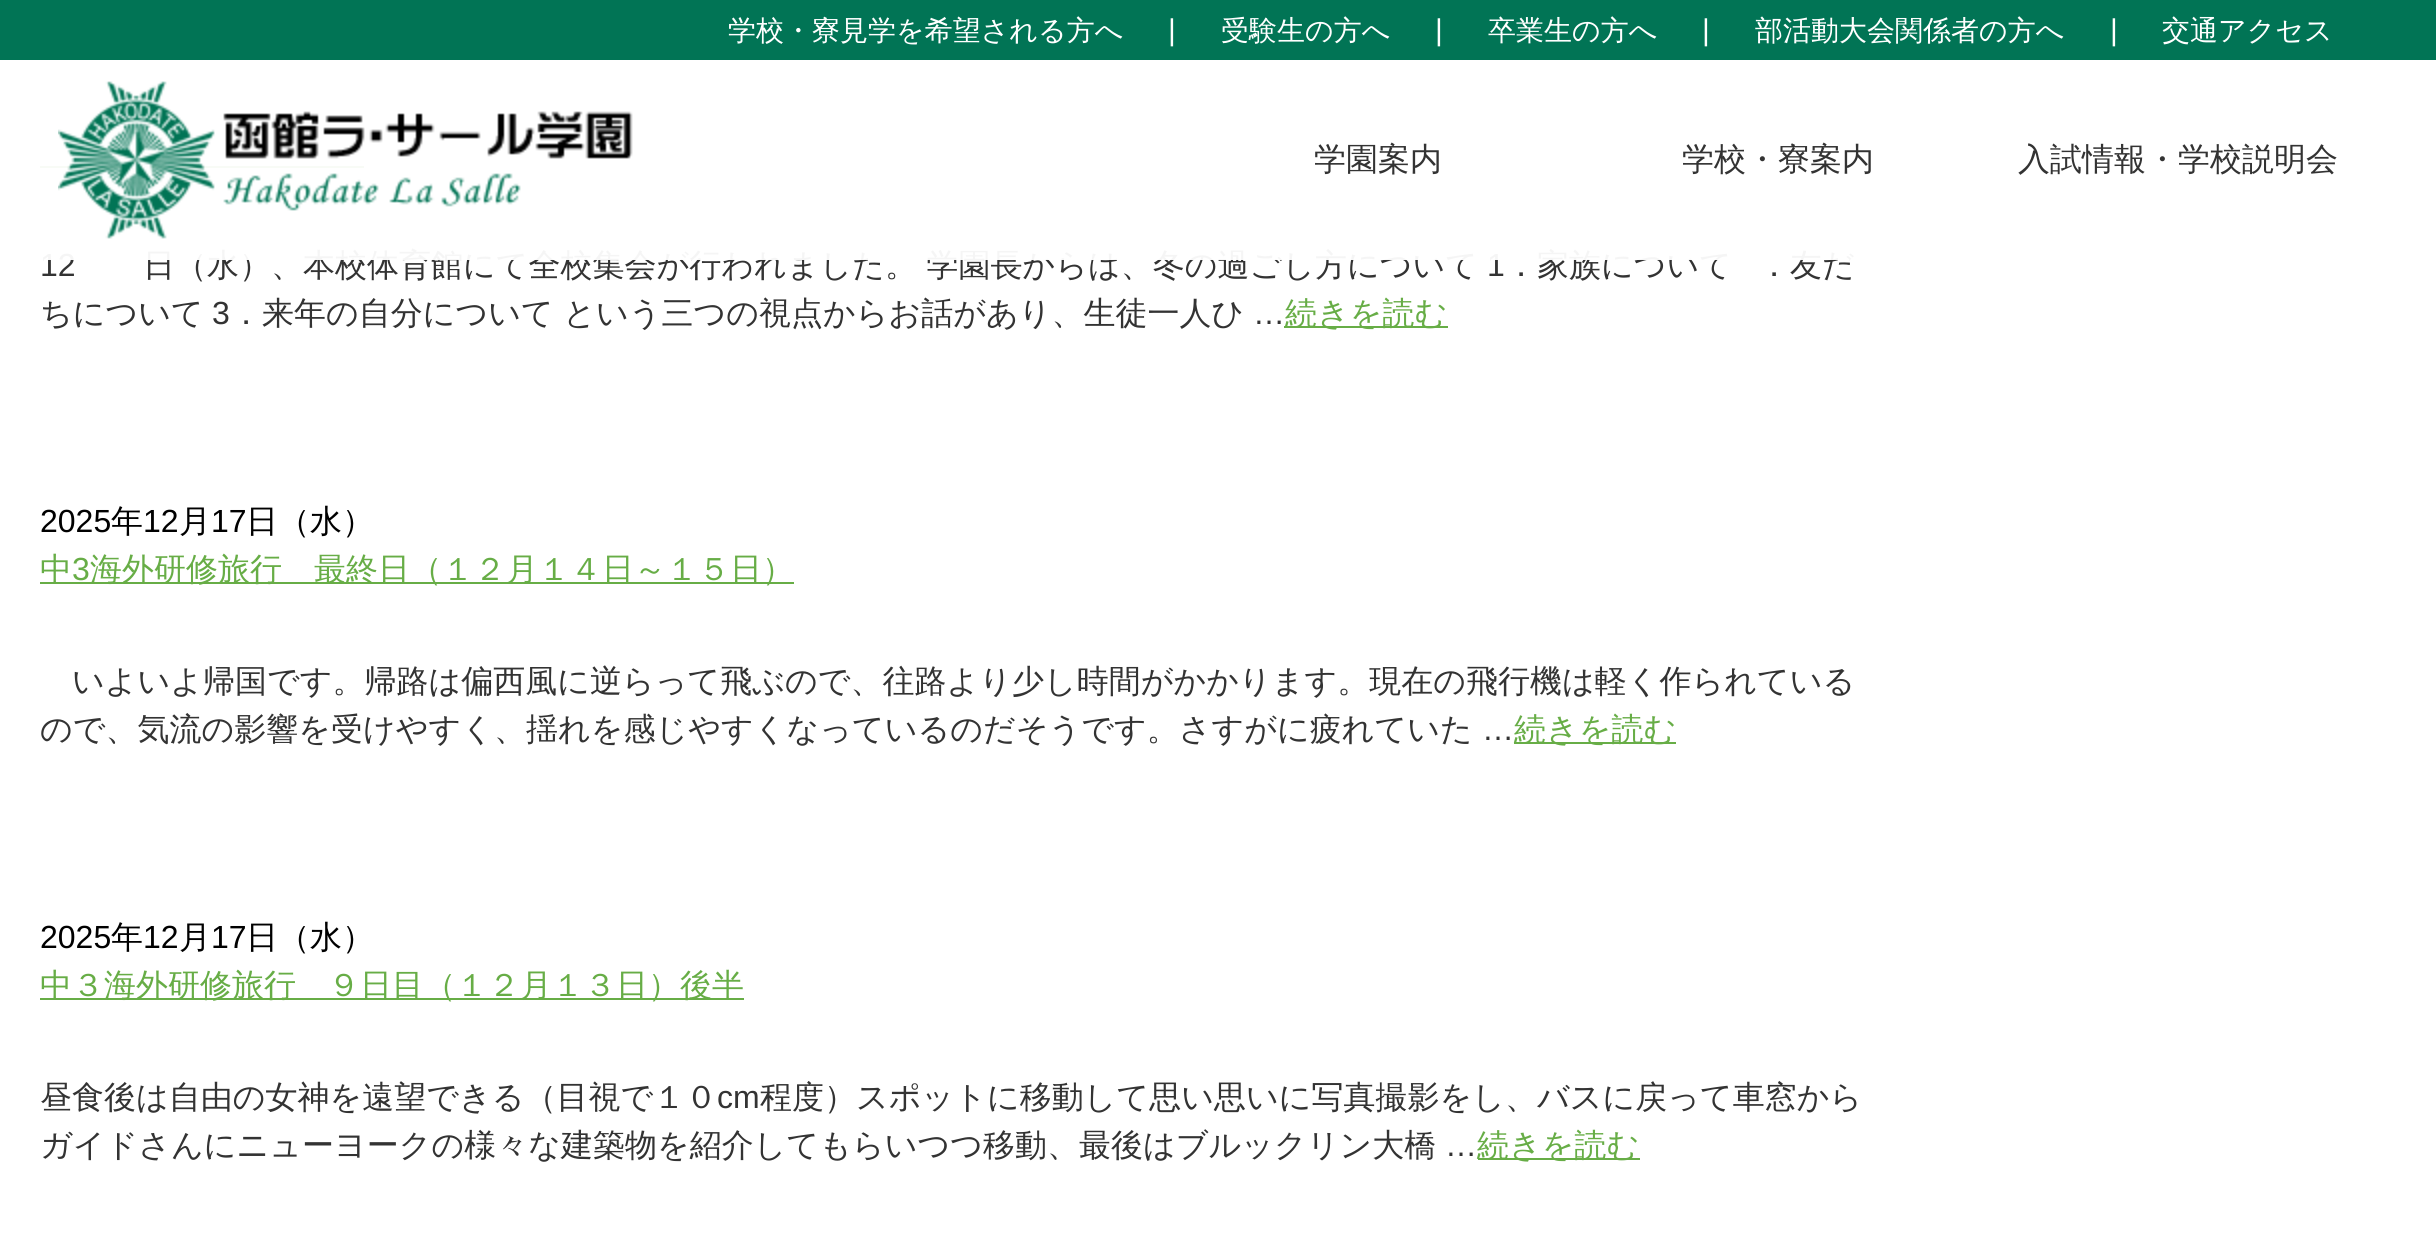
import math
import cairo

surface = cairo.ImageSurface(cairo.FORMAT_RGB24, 2436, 1242)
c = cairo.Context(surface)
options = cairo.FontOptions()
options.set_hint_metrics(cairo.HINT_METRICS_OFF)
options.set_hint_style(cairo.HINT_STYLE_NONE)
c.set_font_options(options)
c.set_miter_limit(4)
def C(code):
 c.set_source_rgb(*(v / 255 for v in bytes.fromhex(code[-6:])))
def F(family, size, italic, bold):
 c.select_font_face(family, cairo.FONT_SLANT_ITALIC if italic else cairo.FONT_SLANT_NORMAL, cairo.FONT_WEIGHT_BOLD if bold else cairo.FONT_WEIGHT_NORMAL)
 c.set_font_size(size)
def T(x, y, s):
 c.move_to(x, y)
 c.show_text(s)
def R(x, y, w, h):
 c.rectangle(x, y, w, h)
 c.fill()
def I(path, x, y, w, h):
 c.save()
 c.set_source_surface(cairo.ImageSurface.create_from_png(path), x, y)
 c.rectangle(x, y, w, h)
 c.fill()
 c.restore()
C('ffffff')
c.paint()
C('67ad46')
R(40,166,324,2)
F('Liberation Sans',32,0,0)
C('333333')
T(40,276,'12')
F('WenQuanYi Zen Hei Medium',32,0,0)
T(143,276,'日（水）、本校体育館にて全校集会が行われました。 学園長からは、冬の過ごし方について')
F('Liberation Sans',32,0,0)
T(1487,276,'1')
F('WenQuanYi Zen Hei Medium',32,0,0)
T(1505,276,'．家族について')
T(1758,276,'．友だ')
c.set_source_rgba(1,1,1,0.95)
R(40,166,1814,94)
C('017455')
R(0,0,2436,60)
F('WenQuanYi Zen Hei Medium',28,0,0)
C('ffffff')
T(728,40,'学校・寮見学を希望される方へ')
F('Liberation Sans',30,0,0)
T(1168,40,'|')
F('WenQuanYi Zen Hei Medium',28,0,0)
T(1221,40,'受験生の方へ')
F('Liberation Sans',30,0,0)
T(1435,40,'|')
F('WenQuanYi Zen Hei Medium',28,0,0)
T(1488,40,'卒業生の方へ')
F('Liberation Sans',30,0,0)
T(1702,40,'|')
F('WenQuanYi Zen Hei Medium',28,0,0)
T(1755,40,'部活動大会関係者の方へ')
F('Liberation Sans',30,0,0)
T(2110,40,'|')
F('WenQuanYi Zen Hei Medium',28,0,0)
T(2162,40,'交通アクセス')
I('1.png',58,81,575,158)
F('WenQuanYi Zen Hei Medium',32,0,0)
C('333333')
T(1314,170,'学園案内')
T(1682,170,'学校・寮案内')
T(2018,170,'入試情報・学校説明会')
T(40,324,'ちについて')
F('Liberation Sans',32,0,0)
T(212,324,'3')
F('WenQuanYi Zen Hei Medium',32,0,0)
T(230,324,'．来年の自分について という三つの視点からお話があり、生徒一人ひ')
F('Liberation Sans',32,0,0)
T(1253,324,'…')
C('67ad46')
R(1284,326,164,2)
F('WenQuanYi Zen Hei Medium',32,0,0)
T(1285,324,'続きを読む')
F('Liberation Sans',32,0,0)
C('000000')
T(40,532,'2025')
F('WenQuanYi Zen Hei Medium',32,0,0)
T(111,532,'年')
F('Liberation Sans',32,0,0)
T(143,532,'12')
F('WenQuanYi Zen Hei Medium',32,0,0)
T(179,532,'月')
F('Liberation Sans',32,0,0)
T(211,532,'17')
F('WenQuanYi Zen Hei Medium',32,0,0)
T(246,532,'日（水）')
C('67ad46')
R(40,582,754,2)
T(40,580,'中')
F('Liberation Sans',32,0,0)
T(72,580,'3')
F('WenQuanYi Zen Hei Medium',32,0,0)
T(90,580,'海外研修旅行　最終日（１２月１４日～１５日）')
C('333333')
T(72,692,'いよいよ帰国です。帰路は偏西風に逆らって飛ぶので、往路より少し時間がかかります。現在の飛行機は軽く作られている')
T(40,740,'ので、気流の影響を受けやすく、揺れを感じやすくなっているのだそうです。さすがに疲れていた')
F('Liberation Sans',32,0,0)
T(1482,740,'…')
C('67ad46')
R(1514,742,162,2)
F('WenQuanYi Zen Hei Medium',32,0,0)
T(1514,740,'続きを読む')
F('Liberation Sans',32,0,0)
C('000000')
T(40,948,'2025')
F('WenQuanYi Zen Hei Medium',32,0,0)
T(111,948,'年')
F('Liberation Sans',32,0,0)
T(143,948,'12')
F('WenQuanYi Zen Hei Medium',32,0,0)
T(179,948,'月')
F('Liberation Sans',32,0,0)
T(211,948,'17')
F('WenQuanYi Zen Hei Medium',32,0,0)
T(246,948,'日（水）')
C('67ad46')
R(40,998,704,2)
T(40,996,'中３海外研修旅行　９日目（１２月１３日）後半')
C('333333')
T(40,1108,'昼食後は自由の女神を遠望できる（目視で１０')
F('Liberation Sans',32,0,0)
T(717,1108,'cm')
F('WenQuanYi Zen Hei Medium',32,0,0)
T(760,1108,'程度）スポットに移動して思い思いに写真撮影をし、バスに戻って車窓から')
T(40,1156,'ガイドさんにニューヨークの様々な建築物を紹介してもらいつつ移動、最後はブルックリン大橋')
F('Liberation Sans',32,0,0)
T(1445,1156,'…')
C('67ad46')
R(1478,1158,162,2)
F('WenQuanYi Zen Hei Medium',32,0,0)
T(1477,1156,'続きを読む')
surface.write_to_png('o.png')
